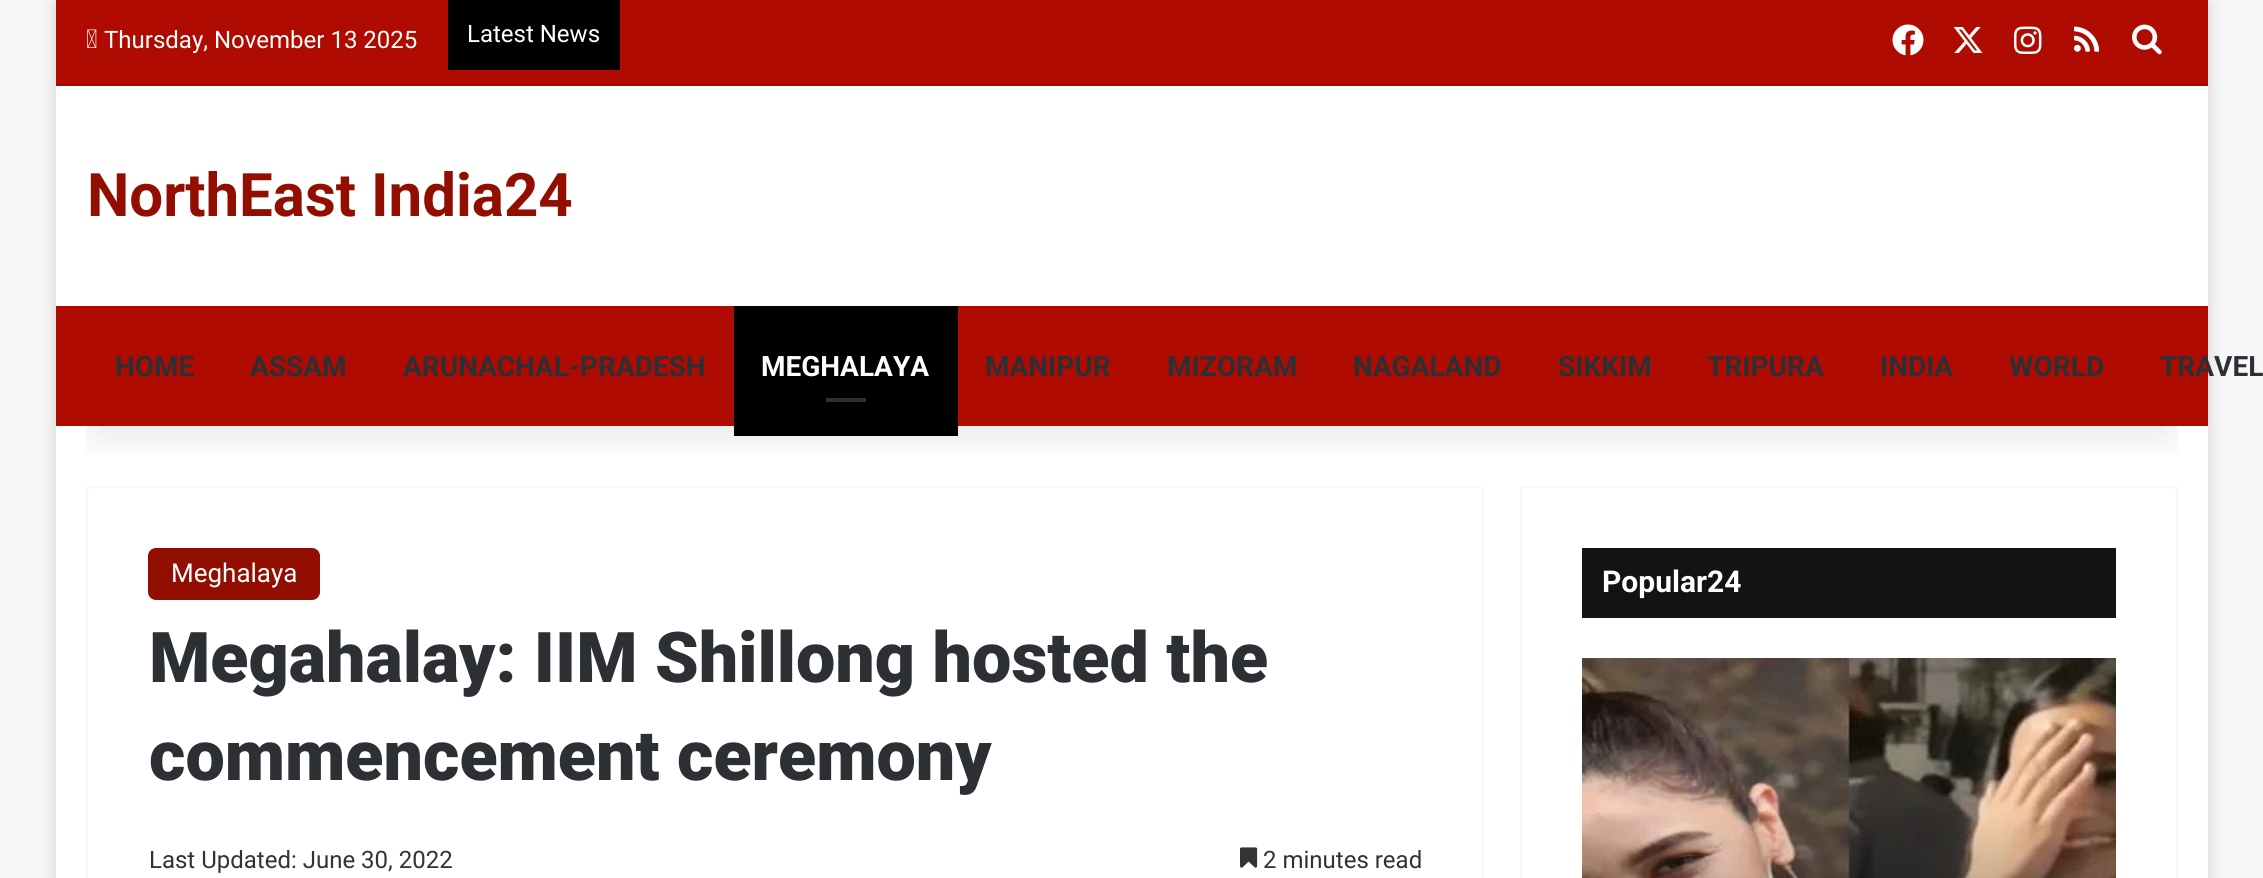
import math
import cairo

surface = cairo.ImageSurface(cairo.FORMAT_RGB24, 2263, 878)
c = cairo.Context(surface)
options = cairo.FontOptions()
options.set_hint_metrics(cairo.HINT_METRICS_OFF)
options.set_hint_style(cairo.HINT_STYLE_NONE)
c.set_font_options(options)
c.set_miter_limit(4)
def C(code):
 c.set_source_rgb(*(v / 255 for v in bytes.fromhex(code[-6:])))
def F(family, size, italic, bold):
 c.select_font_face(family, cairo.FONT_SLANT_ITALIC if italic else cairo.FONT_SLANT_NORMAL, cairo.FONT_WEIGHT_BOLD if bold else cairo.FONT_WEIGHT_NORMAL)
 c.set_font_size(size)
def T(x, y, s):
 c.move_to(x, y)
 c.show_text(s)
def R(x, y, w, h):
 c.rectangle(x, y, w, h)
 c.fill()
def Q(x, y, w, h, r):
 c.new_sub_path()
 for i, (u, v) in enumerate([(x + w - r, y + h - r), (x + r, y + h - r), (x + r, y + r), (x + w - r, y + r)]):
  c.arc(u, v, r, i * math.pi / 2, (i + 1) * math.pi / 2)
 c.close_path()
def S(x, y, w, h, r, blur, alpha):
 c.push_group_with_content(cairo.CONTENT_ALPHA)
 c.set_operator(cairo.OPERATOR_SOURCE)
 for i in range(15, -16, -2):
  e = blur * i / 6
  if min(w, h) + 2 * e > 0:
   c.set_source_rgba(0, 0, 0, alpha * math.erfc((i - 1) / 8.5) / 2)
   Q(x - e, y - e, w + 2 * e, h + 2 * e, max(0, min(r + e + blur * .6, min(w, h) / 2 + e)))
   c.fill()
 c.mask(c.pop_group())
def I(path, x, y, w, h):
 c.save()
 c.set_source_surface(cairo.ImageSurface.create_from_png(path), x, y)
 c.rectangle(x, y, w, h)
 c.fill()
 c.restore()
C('f7f7f7')
c.paint()
C('ababab')
S(56,2,2152,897,0,7,.5)
C('ffffff')
R(56,86,2152,792)
Q(87,487,1396,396,3)
C('f7f7f7')
c.stroke()
Q(1521,487,656,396,3)
c.stroke()
c.save()
c.rectangle(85,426,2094,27)
c.clip()
C('000000')
S(96,90,2072,346,0,20,.1)
c.restore()
C('af0b00')
R(56,0,2152,84)
C('9e0a00')
R(56,84,2152,2)
I('1.png',87,29,10,19)
F('Roboto',24,0,0)
C('ffffff')
T(104,48,'Thursday, November 13 2025')
C('000000')
R(448,0,172,70)
C('ffffff')
T(467,42,'Latest News')
I('2.png',1892,24,32,32)
I('3.png',1953,27,30,26)
I('4.png',2014,26,28,28)
I('5.png',2074,26,26,26)
I('6.png',2132,24,30,31)
F('Roboto',60,0,1)
C('910e00')
T(87,216,'NorthEast India24')
C('af0b00')
R(56,306,2152,120)
F('Roboto',28,0,1)
C('2c2f34')
T(115,376,'HOME')
T(250,376,'ASSAM')
T(403,376,'ARUNACHAL-PRADESH')
C('000000')
R(734,306,224,130)
C('ffffff')
T(761,376,'MEGHALAYA')
C('2c2f34')
R(826,398,40,4)
T(985,376,'MANIPUR')
T(1167,376,'MIZORAM')
T(1353,376,'NAGALAND')
T(1558,376,'SIKKIM')
T(1707,376,'TRIPURA')
T(1880,376,'INDIA')
T(2009,376,'WORLD')
T(2160,376,'TRAVEL')
C('910e00')
Q(148,548,172,52,8)
c.fill()
F('Roboto',26,0,0)
C('ffffff')
T(171,582,'Meghalaya')
F('Roboto Black',70,0,0)
C('2c2f34')
T(149,682,'Megahalay: IIM Shillong hosted the')
T(149,780,'commencement ceremony')
F('Roboto',24,0,0)
C('333333')
T(149,868,'Last Updated: June 30, 2022')
I('7.png',1240,847,18,21)
T(1263,868,'2 minutes read')
C('131313')
R(1582,548,534,70)
F('Roboto',30,0,1)
C('ffffff')
T(1602,592,'Popular24')
I('8.png',1582,658,534,220)
surface.write_to_png('o.png')
